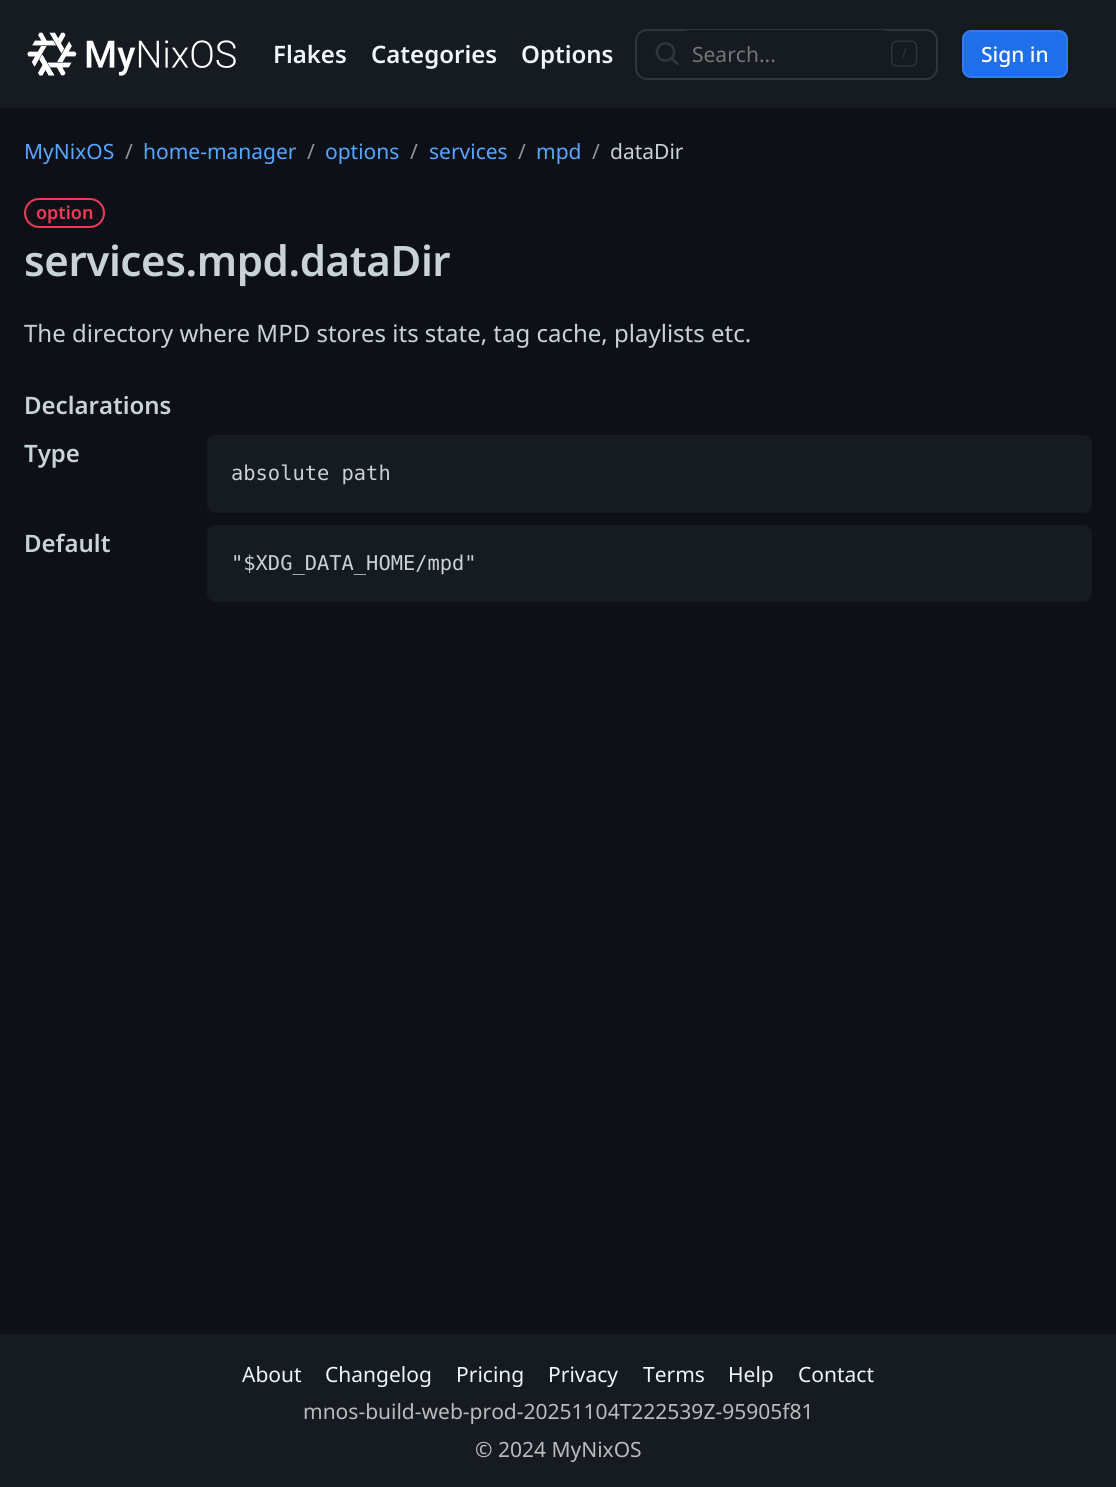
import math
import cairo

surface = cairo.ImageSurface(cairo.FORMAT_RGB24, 1116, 1487)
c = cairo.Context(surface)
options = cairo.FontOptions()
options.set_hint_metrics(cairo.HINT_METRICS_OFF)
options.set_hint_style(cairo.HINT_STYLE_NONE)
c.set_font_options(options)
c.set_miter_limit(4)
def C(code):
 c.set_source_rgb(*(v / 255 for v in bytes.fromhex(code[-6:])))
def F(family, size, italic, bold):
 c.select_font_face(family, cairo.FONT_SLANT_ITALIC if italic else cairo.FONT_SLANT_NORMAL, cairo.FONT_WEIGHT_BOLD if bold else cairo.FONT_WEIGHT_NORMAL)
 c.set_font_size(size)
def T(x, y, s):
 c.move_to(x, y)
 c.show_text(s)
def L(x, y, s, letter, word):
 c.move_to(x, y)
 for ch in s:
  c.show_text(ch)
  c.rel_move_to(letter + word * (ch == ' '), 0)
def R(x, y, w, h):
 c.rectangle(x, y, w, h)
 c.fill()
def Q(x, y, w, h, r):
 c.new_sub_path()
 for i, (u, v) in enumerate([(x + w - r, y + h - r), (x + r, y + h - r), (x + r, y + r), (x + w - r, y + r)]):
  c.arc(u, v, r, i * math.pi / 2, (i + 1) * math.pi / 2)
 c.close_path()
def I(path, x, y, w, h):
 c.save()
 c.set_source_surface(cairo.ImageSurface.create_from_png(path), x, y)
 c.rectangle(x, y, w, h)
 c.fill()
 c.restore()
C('0d1117')
c.paint()
C('161b22')
R(0,0,1116,108)
I('1.png',27,32,209,44)
F('Noto Sans SemiBold',24,0,0)
C('f0f6fc')
T(273,63,'Flakes')
T(371,63,'Categories')
T(521,63,'Options')
Q(636,30,301,49,11)
C('30363d')
c.stroke()
I('2.png',655,42,24,23)
C('161b22')
Q(680,30,211,48,9)
c.fill()
F('Noto Sans',21,0,0)
C('757575')
T(692,62,'Search...')
I('3.png',891,40,27,27)
C('1f6feb')
Q(962,30,106,48,9)
c.fill()
Q(963,31,104,46,8)
c.set_source_rgba(0.941,0.965,0.988,0.1)
c.stroke()
F('Noto Sans Medium',21,0,0)
C('ffffff')
T(981,62,'Sign in')
F('Noto Sans',21,0,0)
C('58a6ff')
T(24,159,'MyNixOS')
C('8b949e')
T(125,159,'/')
C('58a6ff')
T(143,159,'home-manager')
C('8b949e')
T(307,159,'/')
C('58a6ff')
T(325,159,'options')
C('8b949e')
T(410,159,'/')
C('58a6ff')
T(429,159,'services')
C('8b949e')
T(518,159,'/')
C('58a6ff')
T(536,159,'mpd')
C('8b949e')
T(592,159,'/')
C('c9d1d9')
T(610,159,'dataDir')
Q(25,199,79,28,14)
C('f73859')
c.stroke()
F('Noto Sans SemiBold',18,0,0)
T(36,219,'option')
F('Noto Sans SemiBold',42,0,0)
C('c9d1d9')
L(24,276,'services.mpd.dataDir',-.4,0)
F('Noto Sans',24,0,0)
T(24,342,'The directory where MPD stores its state, tag cache, playlists etc.')
F('Noto Sans SemiBold',24,0,0)
T(24,414,'Declarations')
T(24,462,'Type')
C('161b22')
Q(207,435,885,78,9)
c.fill()
F('DejaVu Sans Mono',20.4,0,0)
C('c9d1d9')
T(231,480,'absolute path')
F('Noto Sans SemiBold',24,0,0)
T(24,552,'Default')
C('161b22')
Q(207,525,885,77,9)
c.fill()
F('DejaVu Sans Mono',20.4,0,0)
C('c9d1d9')
T(231,570,'"$XDG_DATA_HOME/mpd"')
C('161b22')
R(0,1334,1116,153)
F('Noto Sans',21,0,0)
C('f0f6fc')
T(242,1382,'About')
T(325,1382,'Changelog')
T(456,1382,'Pricing')
T(548,1382,'Privacy')
T(643,1382,'Terms')
T(728,1382,'Help')
T(798,1382,'Contact')
C('b9bbbd')
T(303,1419,'mnos-build-web-prod-20251104T222539Z-95905f81')
T(475,1457,'© 2024 MyNixOS')
surface.write_to_png('o.png')
